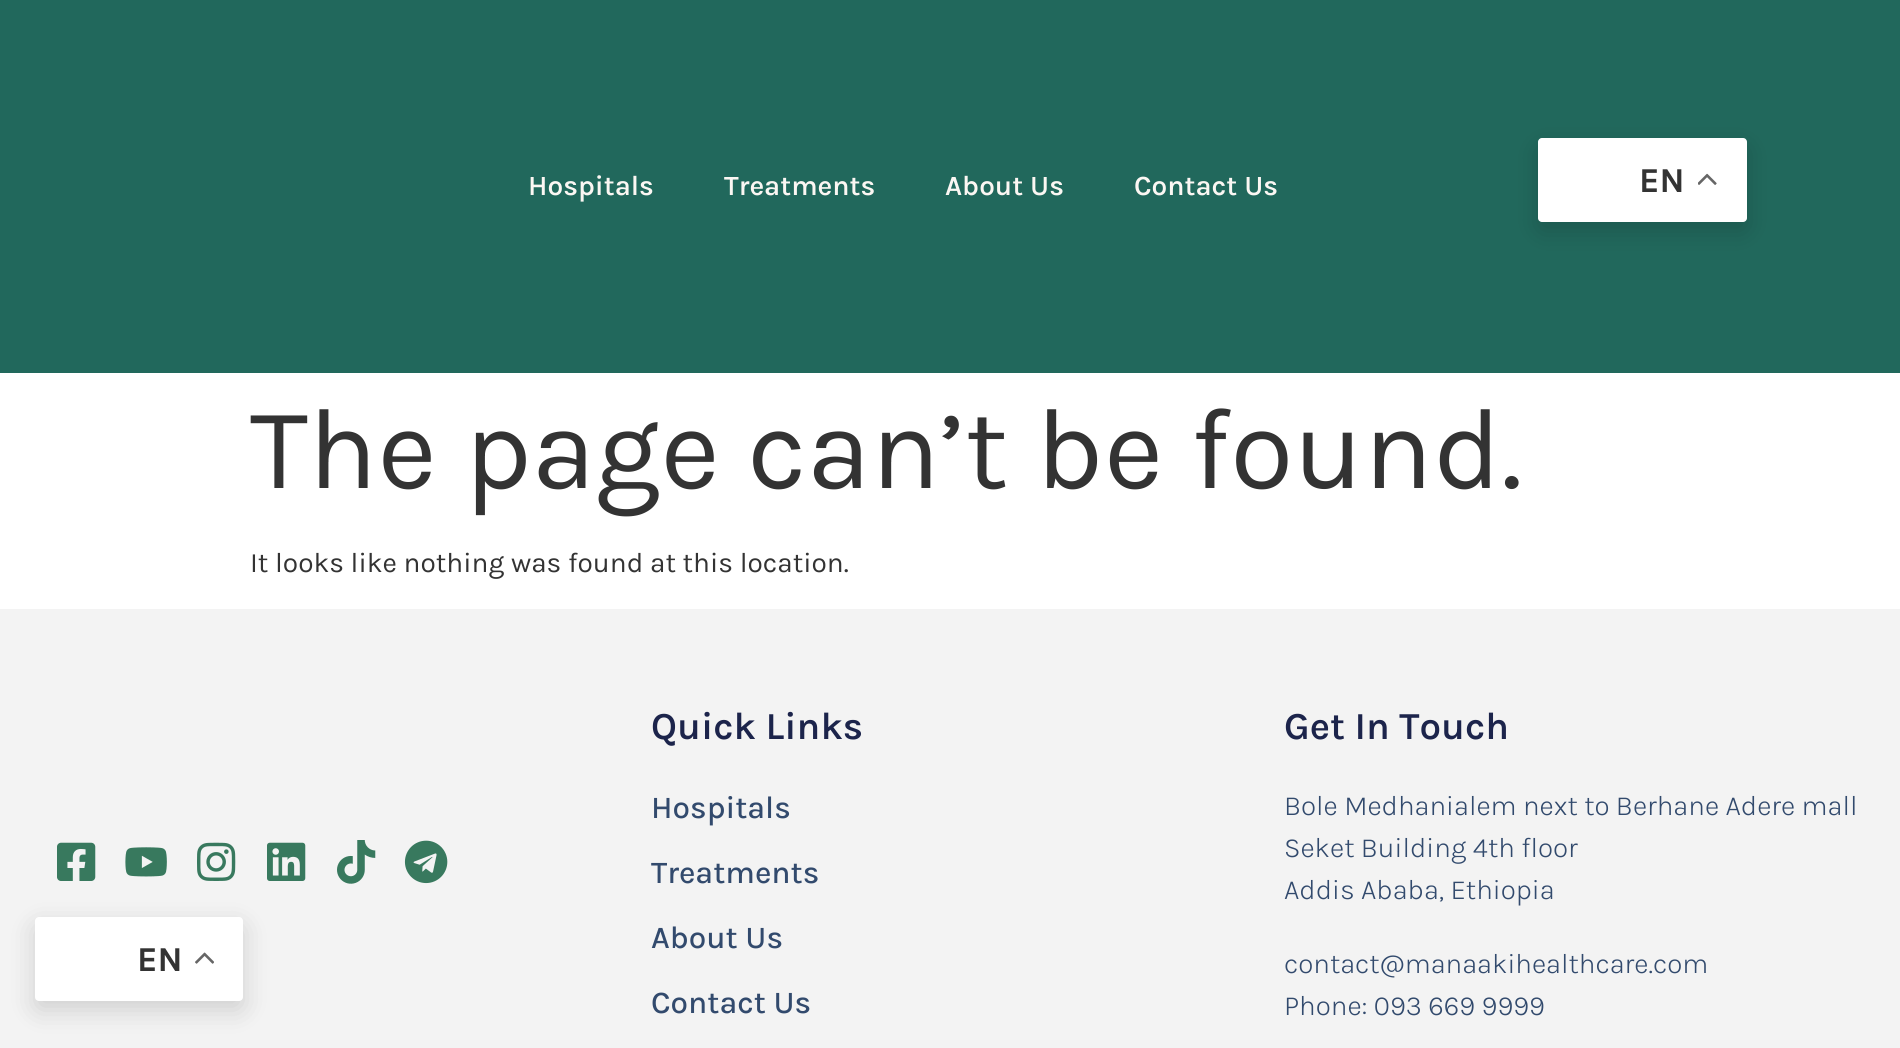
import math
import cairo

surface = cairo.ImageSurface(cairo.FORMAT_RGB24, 1900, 1048)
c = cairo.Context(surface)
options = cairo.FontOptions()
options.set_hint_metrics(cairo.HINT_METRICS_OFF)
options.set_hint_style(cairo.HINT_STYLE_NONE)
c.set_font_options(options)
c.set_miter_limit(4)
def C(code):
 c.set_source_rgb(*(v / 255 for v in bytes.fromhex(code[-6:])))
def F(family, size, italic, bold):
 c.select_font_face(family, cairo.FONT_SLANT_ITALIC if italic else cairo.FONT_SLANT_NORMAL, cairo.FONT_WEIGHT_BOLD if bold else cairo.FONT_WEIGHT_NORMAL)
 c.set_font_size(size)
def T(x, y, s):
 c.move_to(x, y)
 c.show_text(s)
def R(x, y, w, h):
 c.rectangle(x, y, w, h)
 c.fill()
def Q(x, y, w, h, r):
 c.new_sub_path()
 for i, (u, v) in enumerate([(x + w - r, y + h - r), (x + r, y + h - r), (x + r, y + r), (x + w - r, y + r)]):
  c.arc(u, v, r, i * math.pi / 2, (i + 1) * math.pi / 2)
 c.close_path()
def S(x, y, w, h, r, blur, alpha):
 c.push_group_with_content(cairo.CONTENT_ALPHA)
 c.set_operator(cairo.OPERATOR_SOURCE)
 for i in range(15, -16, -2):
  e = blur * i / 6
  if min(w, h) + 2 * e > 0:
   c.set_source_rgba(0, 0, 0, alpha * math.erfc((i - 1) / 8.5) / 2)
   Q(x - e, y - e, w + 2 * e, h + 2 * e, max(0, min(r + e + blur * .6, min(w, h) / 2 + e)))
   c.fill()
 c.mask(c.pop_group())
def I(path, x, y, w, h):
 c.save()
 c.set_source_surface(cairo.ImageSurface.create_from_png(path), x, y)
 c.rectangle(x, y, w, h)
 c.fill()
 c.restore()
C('ffffff')
c.paint()
C('21685c')
R(0,0,1900,373)
F('Karla SemiBold',28,0,0)
C('fbf7f3')
T(528,195,'Hospitals')
T(724,195,'Treatments')
T(945,195,'About Us')
T(1134,195,'Contact Us')
C('000000')
S(1538,147,209,84,4,13,.15)
C('ffffff')
Q(1538,138,209,84,4)
c.fill()
F('Karla',35,0,1)
C('333333')
T(1639,192,'EN')
I('1.png',1698,173,19,12)
F('Karla',115.5,0,0)
T(250,488,'The page can’t be found.')
F('Karla',28,0,0)
T(250,572,'It looks like nothing was found at this location.')
C('f3f3f3')
R(0,609,1900,439)
C('000000')
S(35,926,208,84,4,13,.15)
C('ffffff')
Q(35,917,208,84,4)
c.fill()
F('Karla',35,0,1)
C('333333')
T(137,971,'EN')
I('2.png',195,952,19,12)
I('3.png',57,842,39,39)
I('4.png',125,847,42,30)
I('5.png',197,842,39,39)
I('6.png',267,842,39,39)
I('7.png',337,840,39,44)
I('8.png',404,840,44,44)
F('Karla SemiBold',38.5,0,0)
C('1c244b')
T(651,739,'Quick Links')
F('Karla Medium',31.5,0,0)
C('324a6d')
T(651,818,'Hospitals')
T(651,883,'Treatments')
T(651,948,'About Us')
T(651,1013,'Contact Us')
F('Karla SemiBold',38.5,0,0)
C('1c244b')
T(1284,739,'Get In Touch')
F('Karla Light',28,0,0)
C('324a6d')
T(1284,815,'Bole Medhanialem next to Berhane Adere mall')
T(1284,857,'Seket Building 4th floor')
T(1284,899,'Addis Ababa, Ethiopia')
T(1284,973,'contact@manaakihealthcare.com')
T(1284,1015,'Phone: 093 669 9999')
surface.write_to_png('o.png')
